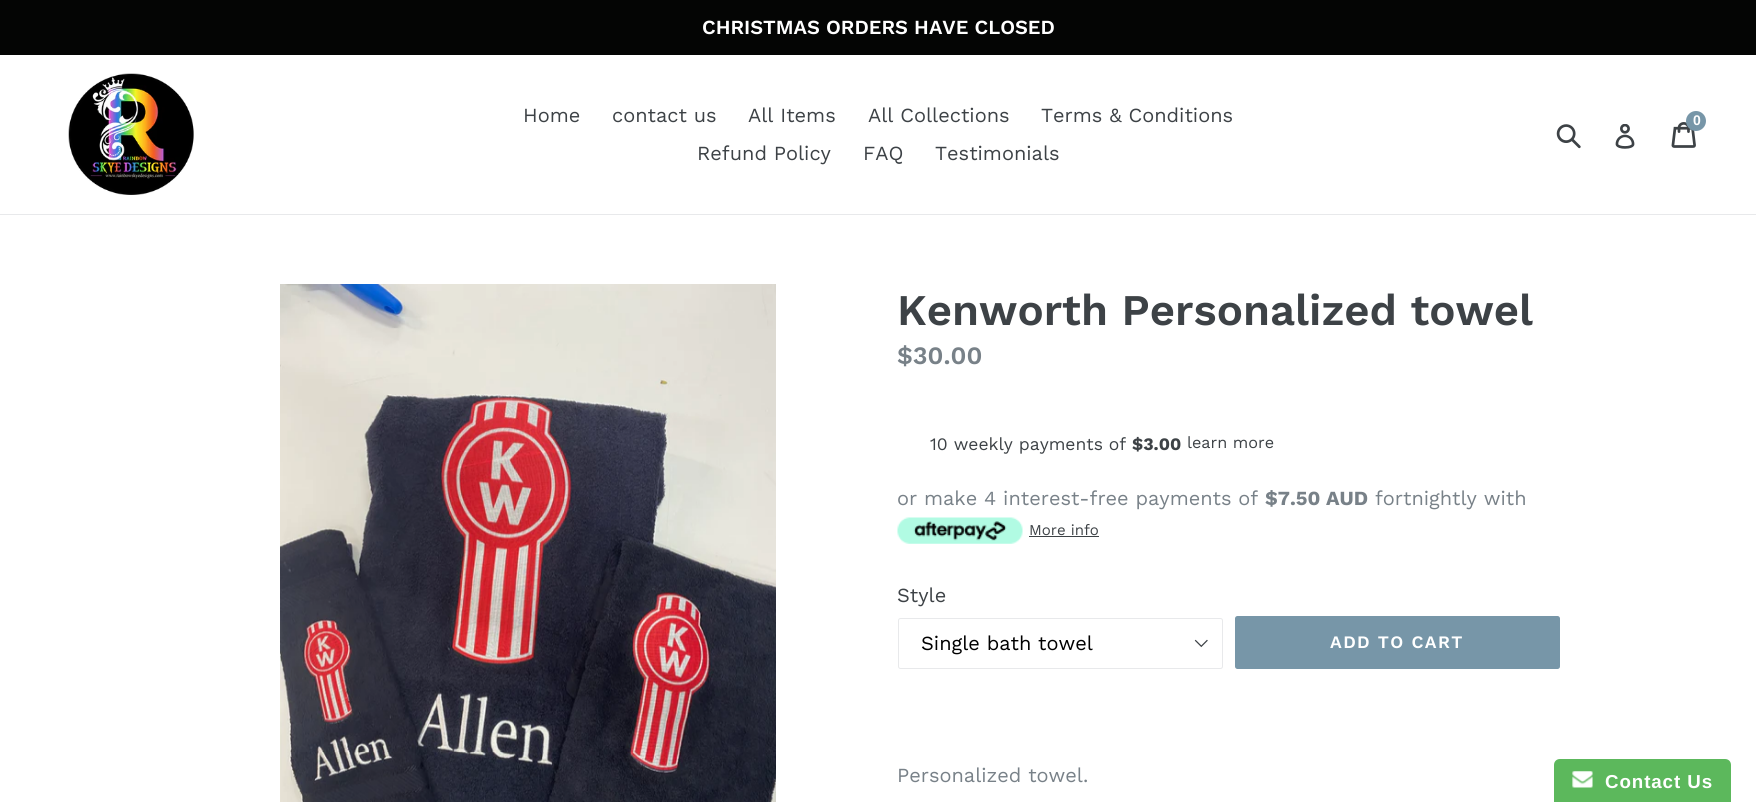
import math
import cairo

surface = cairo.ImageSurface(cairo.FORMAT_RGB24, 1756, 802)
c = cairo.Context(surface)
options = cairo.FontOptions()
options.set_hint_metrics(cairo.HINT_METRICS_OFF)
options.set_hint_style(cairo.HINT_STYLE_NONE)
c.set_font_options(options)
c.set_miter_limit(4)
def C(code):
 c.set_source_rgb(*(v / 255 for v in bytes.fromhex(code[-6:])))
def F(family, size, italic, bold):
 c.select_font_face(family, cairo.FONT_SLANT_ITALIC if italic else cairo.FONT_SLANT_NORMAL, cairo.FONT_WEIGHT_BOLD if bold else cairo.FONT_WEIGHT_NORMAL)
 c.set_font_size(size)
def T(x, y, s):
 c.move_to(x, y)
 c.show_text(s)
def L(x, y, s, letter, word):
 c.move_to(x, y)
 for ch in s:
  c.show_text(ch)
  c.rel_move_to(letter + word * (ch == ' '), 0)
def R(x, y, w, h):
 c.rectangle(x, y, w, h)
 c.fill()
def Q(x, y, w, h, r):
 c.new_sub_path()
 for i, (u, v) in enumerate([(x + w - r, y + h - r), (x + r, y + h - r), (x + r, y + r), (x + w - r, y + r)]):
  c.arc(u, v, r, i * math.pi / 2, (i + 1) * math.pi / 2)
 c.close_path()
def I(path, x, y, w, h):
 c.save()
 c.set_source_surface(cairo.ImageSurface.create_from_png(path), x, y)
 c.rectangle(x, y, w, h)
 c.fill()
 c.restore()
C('ffffff')
c.paint()
C('040504')
R(0,0,1756,55)
F('Work Sans SemiBold',20,0,0)
C('ffffff')
T(702,34,'CHRISTMAS ORDERS HAVE CLOSED')
C('e8e9eb')
R(0,214,1756,1)
I('1.png',68,73,126,122)
F('Work Sans',20,0,0)
C('3d4246')
T(523,122,'Home')
T(612,122,'contact us')
T(748,122,'All Items')
T(868,122,'All Collections')
T(1041,122,'Terms & Conditions')
T(697,160,'Refund Policy')
T(863,160,'FAQ')
T(935,160,'Testimonials')
I('2.png',1671,122,25,26)
C('7796a8')
c.arc(1696,121,10,0,2 * math.pi)
c.fill()
F('Liberation Sans',14,0,1)
C('ffffff')
T(1693,125,'0')
I('3.png',1556,124,25,25)
I('4.png',1615,124,20,25)
I('5.png',280,284,496,518)
F('Work Sans SemiBold',43.75,0,0)
C('3d4246')
T(897,325,'Kenworth Personalized towel')
F('Work Sans SemiBold',25,0,0)
C('788188')
T(897,364,'$30.00')
F('Work Sans',17.5,0,0)
C('3d4246')
T(930,450,'10 weekly payments of')
F('Work Sans',17.5,0,1)
T(1132,450,'$3.00')
F('Work Sans',16.25,0,0)
T(1187,448,'learn more')
F('Work Sans',20,0,0)
C('788188')
T(897,505,'or make 4 interest-free payments of')
F('Work Sans',20,0,1)
T(1265,505,'$7.50 AUD')
F('Work Sans',20,0,0)
T(1375,505,'fortnightly with')
I('6.png',897,517,126,27)
F('Work Sans',15,0,0)
C('3d4246')
T(1029,535,'More info')
R(1029,536,70,1)
F('Work Sans',20,0,0)
T(897,602,'Style')
I('7.png',1194,639,14,9)
Q(898.5,618.5,324,50,2)
C('e8e9eb')
c.set_line_width(1)
c.stroke()
C('000000')
T(921,650,'Single bath towel')
C('7796a8')
Q(1235,616,325,53,2.5)
c.fill()
F('Work Sans SemiBold',17.5,0,0)
C('ffffff')
L(1330,648,'ADD TO CART',1.4,0)
F('Work Sans',20,0,0)
C('788188')
T(897,782,'Personalized towel.')
C('5cb85c')
c.new_path()
c.move_to(1560,759)
c.line_to(1725,759)
c.curve_to(1728.5,759,1731,761.5,1731,765)
c.line_to(1731,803)
c.line_to(1554,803)
c.line_to(1554,765)
c.curve_to(1554,761.5,1556.5,759,1560,759)
c.close_path()
c.fill()
I('8.png',1572,771,21,17)
F('Liberation Sans',18.75,0,1)
C('ffffff')
L(1605,788,'Contact Us',.9,0)
surface.write_to_png('o.png')
